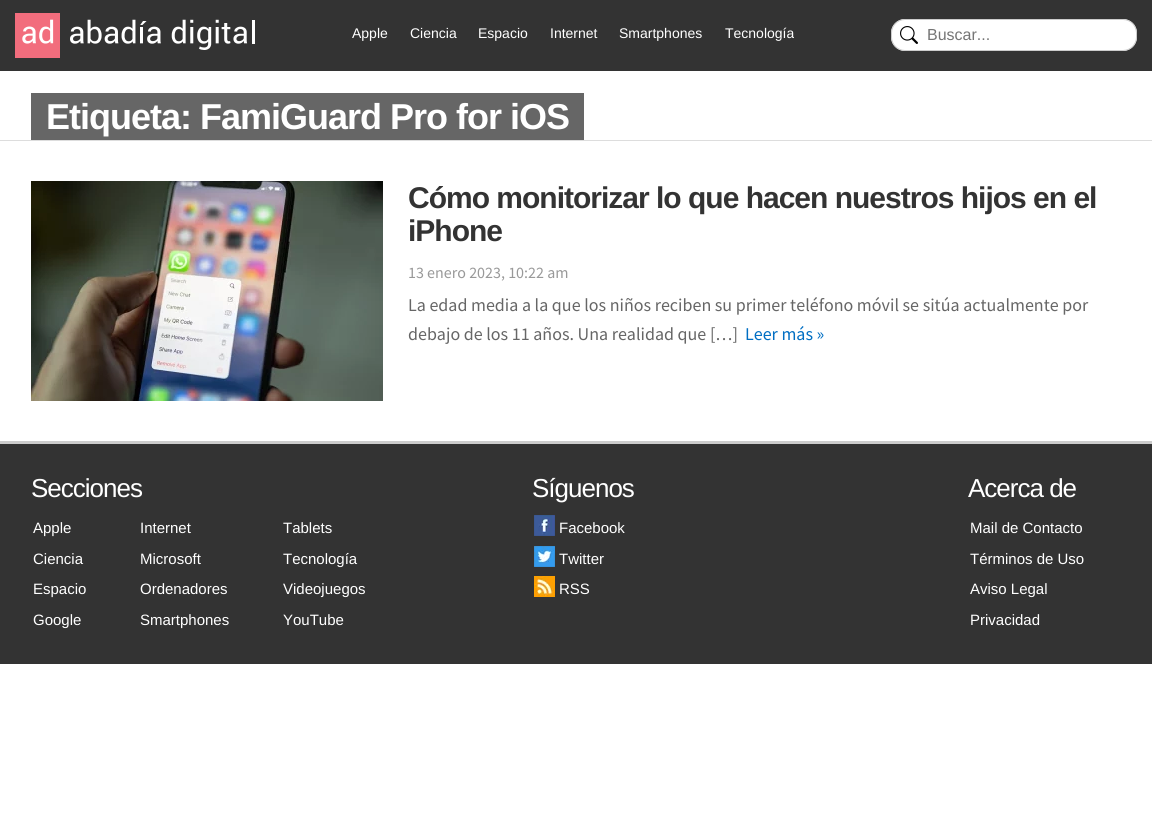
import math
import cairo

surface = cairo.ImageSurface(cairo.FORMAT_RGB24, 1152, 830)
c = cairo.Context(surface)
options = cairo.FontOptions()
options.set_hint_metrics(cairo.HINT_METRICS_OFF)
options.set_hint_style(cairo.HINT_STYLE_NONE)
c.set_font_options(options)
c.set_miter_limit(4)
def C(code):
 c.set_source_rgb(*(v / 255 for v in bytes.fromhex(code[-6:])))
def F(family, size, italic, bold):
 c.select_font_face(family, cairo.FONT_SLANT_ITALIC if italic else cairo.FONT_SLANT_NORMAL, cairo.FONT_WEIGHT_BOLD if bold else cairo.FONT_WEIGHT_NORMAL)
 c.set_font_size(size)
def T(x, y, s):
 c.move_to(x, y)
 c.show_text(s)
def L(x, y, s, letter, word):
 c.move_to(x, y)
 for ch in s:
  c.show_text(ch)
  c.rel_move_to(letter + word * (ch == ' '), 0)
def R(x, y, w, h):
 c.rectangle(x, y, w, h)
 c.fill()
def Q(x, y, w, h, r):
 c.new_sub_path()
 for i, (u, v) in enumerate([(x + w - r, y + h - r), (x + r, y + h - r), (x + r, y + r), (x + w - r, y + r)]):
  c.arc(u, v, r, i * math.pi / 2, (i + 1) * math.pi / 2)
 c.close_path()
def I(path, x, y, w, h):
 c.save()
 c.set_source_surface(cairo.ImageSurface.create_from_png(path), x, y)
 c.rectangle(x, y, w, h)
 c.fill()
 c.restore()
C('ffffff')
c.paint()
C('333333')
R(0,0,1152,71)
I('1.png',15,13,240,45)
F('Liberation Sans',14,0,0)
C('ffffff')
T(352,38,'Apple')
T(410,38,'Ciencia')
T(478,38,'Espacio')
T(550,38,'Internet')
T(619,38,'Smartphones')
T(725,38,'Tecnología')
Q(891,19,246,32,14)
c.fill()
I('2.png',900,26,18,18)
Q(891.5,19.5,245,31,13.5)
C('cccccc')
c.set_line_width(1)
c.stroke()
F('Liberation Sans',16,0,0)
C('757575')
T(927,40,'Buscar...')
C('666666')
R(31,93,553,47)
F('Liberation Sans',36,0,1)
C('ffffff')
L(46,129,'Etiqueta: FamiGuard Pro for iOS',-1,0)
C('dddddd')
R(0,140,1152,1)
I('3.png',31,181,352,220)
F('Liberation Sans',30,0,1)
C('333333')
L(408,208,'Cómo monitorizar lo que hacen nuestros hijos en el',-1,0)
L(408,241,'iPhone',-1,0)
F('Source Sans Pro',16,0,0)
C('999999')
T(408,278,'13 enero 2023, 10:22 am')
F('Source Sans Pro',18,0,0)
C('666666')
T(408,311,'La edad media a la que los niños reciben su primer teléfono móvil se sitúa actualmente por')
T(408,340,'debajo de los 11 años. Una realidad que […]')
C('006ec3')
T(745,340,'Leer más »')
C('333333')
R(0,444,1152,220)
C('cccccc')
R(0,441,1152,3)
F('Liberation Sans',26,0,0)
C('ffffff')
L(31,497,'Secciones',-1,0)
F('Liberation Sans',15,0,0)
T(33,533,'Apple')
T(33,564,'Ciencia')
T(33,594,'Espacio')
T(33,625,'Google')
T(140,533,'Internet')
T(140,564,'Microsoft')
T(140,594,'Ordenadores')
T(140,625,'Smartphones')
T(283,533,'Tablets')
T(283,564,'Tecnología')
T(283,594,'Videojuegos')
T(283,625,'YouTube')
F('Liberation Sans',26,0,0)
L(532,497,'Síguenos',-1,0)
I('4.png',534,515,21,21)
F('Liberation Sans',15,0,0)
T(559,533,'Facebook')
I('5.png',534,546,21,21)
T(559,564,'Twitter')
I('6.png',534,576,21,21)
T(559,594,'RSS')
F('Liberation Sans',26,0,0)
L(968,497,'Acerca de',-1,0)
F('Liberation Sans',15,0,0)
T(970,533,'Mail de Contacto')
T(970,564,'Términos de Uso')
T(970,594,'Aviso Legal')
T(970,625,'Privacidad')
surface.write_to_png('o.png')
